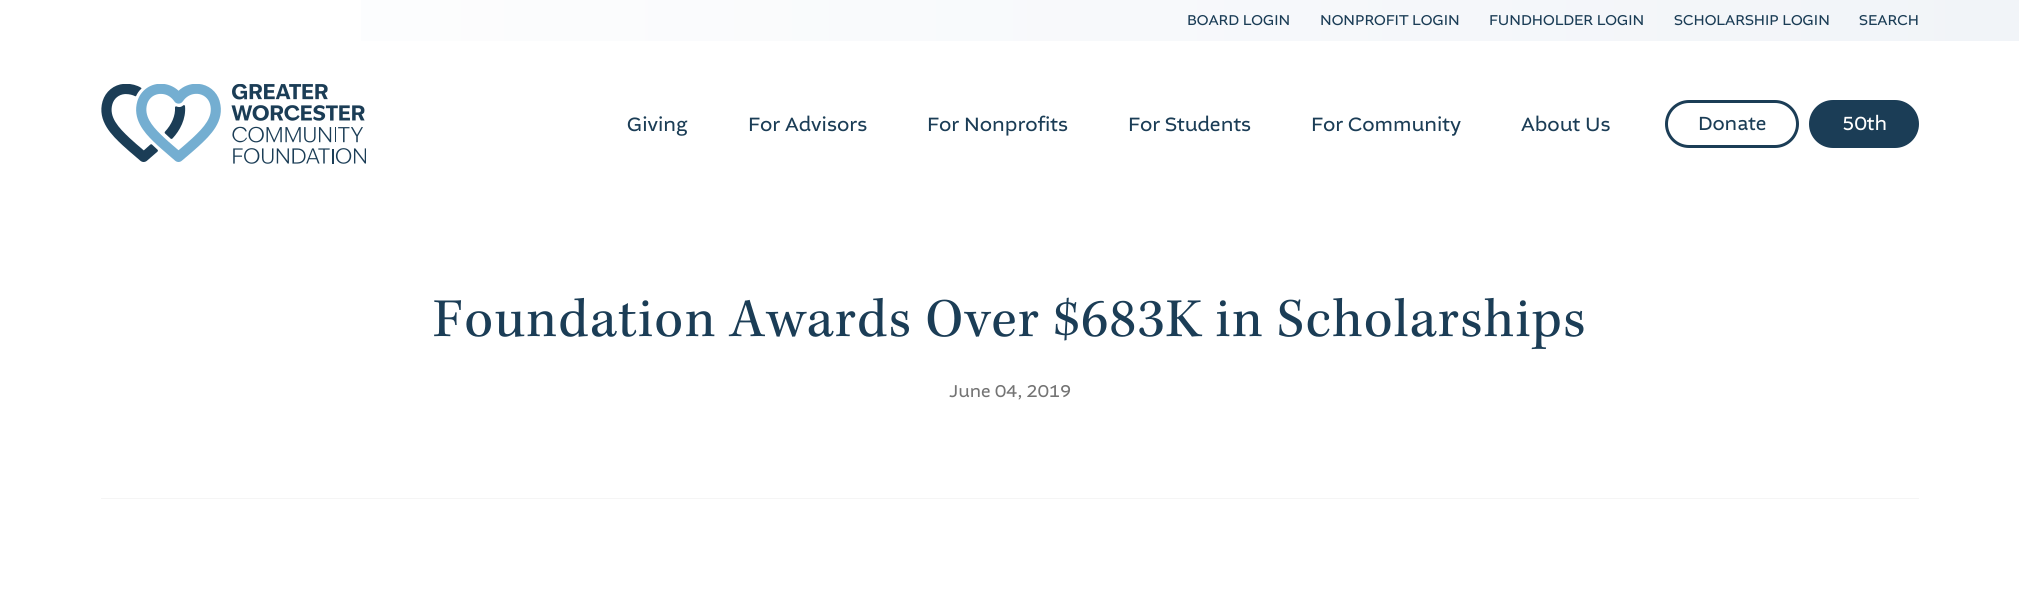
import math
import cairo

surface = cairo.ImageSurface(cairo.FORMAT_RGB24, 2019, 603)
c = cairo.Context(surface)
options = cairo.FontOptions()
options.set_hint_metrics(cairo.HINT_METRICS_OFF)
options.set_hint_style(cairo.HINT_STYLE_NONE)
c.set_font_options(options)
c.set_miter_limit(4)
def C(code):
 c.set_source_rgb(*(v / 255 for v in bytes.fromhex(code[-6:])))
def F(family, size, italic, bold):
 c.select_font_face(family, cairo.FONT_SLANT_ITALIC if italic else cairo.FONT_SLANT_NORMAL, cairo.FONT_WEIGHT_BOLD if bold else cairo.FONT_WEIGHT_NORMAL)
 c.set_font_size(size)
def T(x, y, s):
 c.move_to(x, y)
 c.show_text(s)
def L(x, y, s, letter, word):
 c.move_to(x, y)
 for ch in s:
  c.show_text(ch)
  c.rel_move_to(letter + word * (ch == ' '), 0)
def R(x, y, w, h):
 c.rectangle(x, y, w, h)
 c.fill()
def Q(x, y, w, h, r):
 c.new_sub_path()
 for i, (u, v) in enumerate([(x + w - r, y + h - r), (x + r, y + h - r), (x + r, y + r), (x + w - r, y + r)]):
  c.arc(u, v, r, i * math.pi / 2, (i + 1) * math.pi / 2)
 c.close_path()
def I(path, x, y, w, h):
 c.save()
 c.set_source_surface(cairo.ImageSurface.create_from_png(path), x, y)
 c.rectangle(x, y, w, h)
 c.fill()
 c.restore()
C('ffffff')
c.paint()
gradient = cairo.LinearGradient(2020,21,0,21)
gradient.add_color_stop_rgba(0,0.945,0.957,0.973,1)
gradient.add_color_stop_rgba(1,1,1,1,1)
c.set_source(gradient)
R(361,0,1658,41)
F('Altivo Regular',15,0,0)
C('1b3d56')
T(1187,25,'BOARD LOGIN')
T(1320,25,'NONPROFIT LOGIN')
T(1489,25,'FUNDHOLDER LOGIN')
T(1674,25,'SCHOLARSHIP LOGIN')
T(1859,25,'SEARCH')
I('1.png',101,84,265,80)
F('Altivo Regular',20.25,0,0)
T(627,131,'Giving')
T(748,131,'For Advisors')
T(927,131,'For Nonprofits')
T(1128,131,'For Students')
T(1311,131,'For Community')
T(1521,131,'About Us')
Q(1666.5,101.5,131,45,22.5)
c.set_line_width(3)
c.stroke()
F('Altivo Regular',20,0,0)
T(1698,130,'Donate')
Q(1810.5,101.5,107,45,22.5)
c.fill_preserve()
c.stroke()
C('ffffff')
T(1842,130,'50th')
C('f5f5f5')
R(101,498,1818,1)
F('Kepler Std',56.25,0,0)
C('1b3d56')
L(433,336,'Foundation Awards Over $683K in Scholarships',1.25,0)
F('Altivo Regular',18,0,0)
C('747474')
T(949,397,'June 04, 2019')
surface.write_to_png('o.png')
